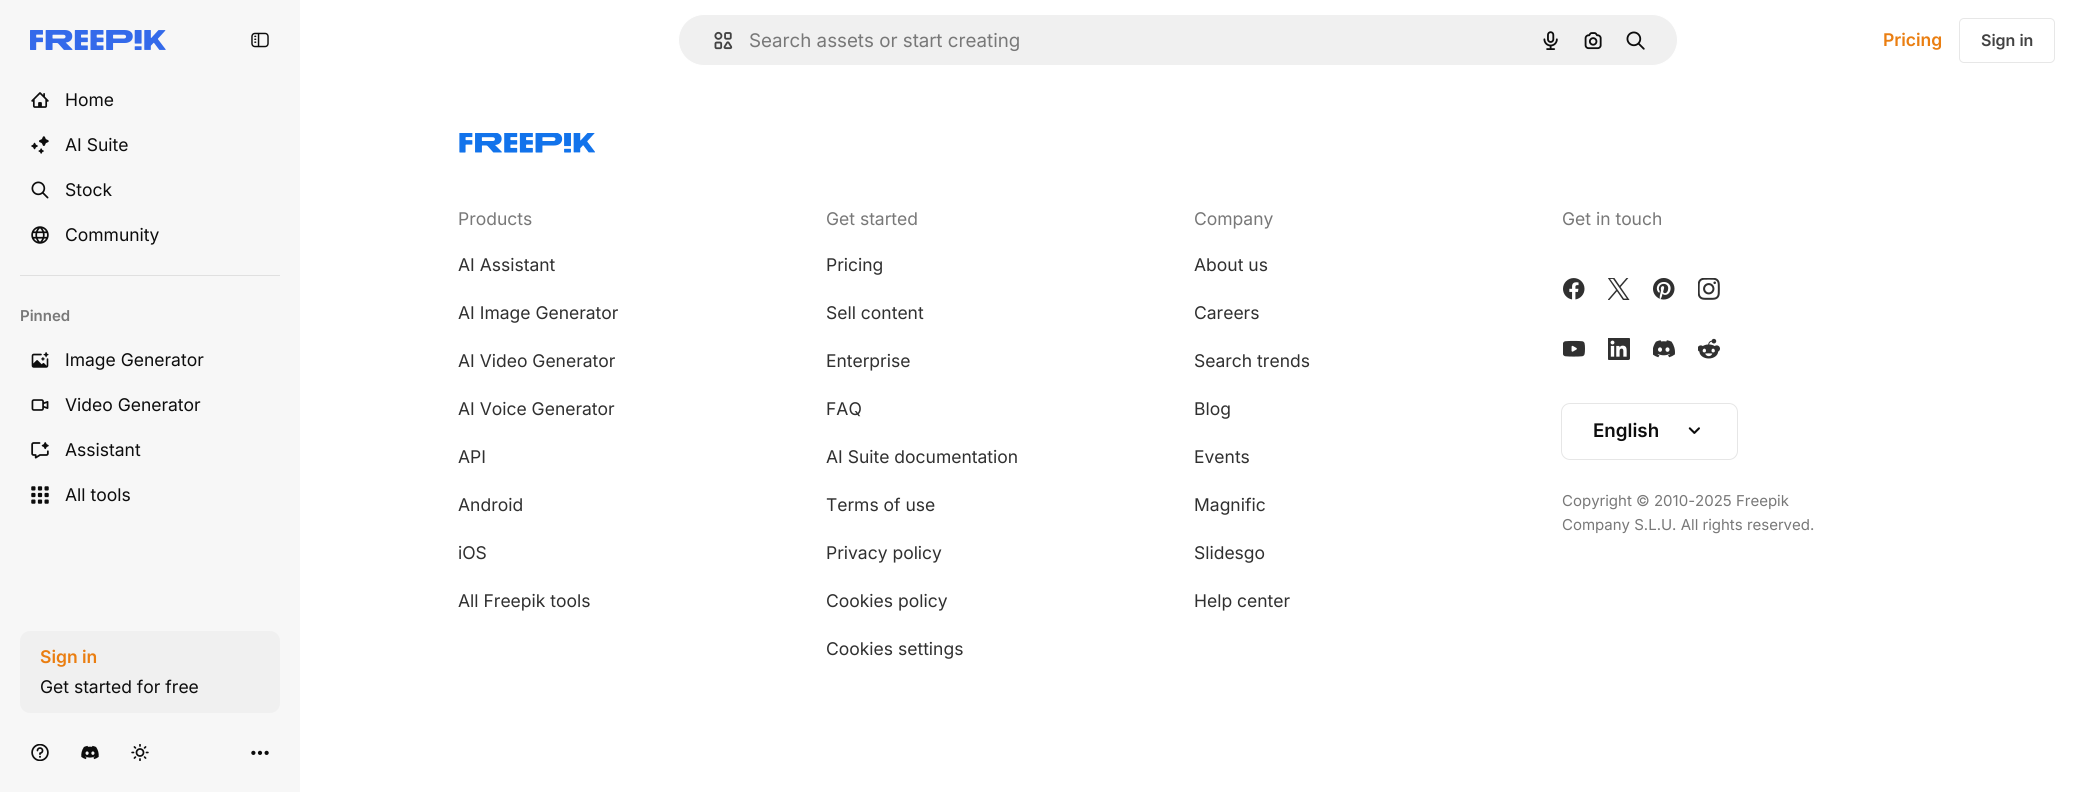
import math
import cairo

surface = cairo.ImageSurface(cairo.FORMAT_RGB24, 2074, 792)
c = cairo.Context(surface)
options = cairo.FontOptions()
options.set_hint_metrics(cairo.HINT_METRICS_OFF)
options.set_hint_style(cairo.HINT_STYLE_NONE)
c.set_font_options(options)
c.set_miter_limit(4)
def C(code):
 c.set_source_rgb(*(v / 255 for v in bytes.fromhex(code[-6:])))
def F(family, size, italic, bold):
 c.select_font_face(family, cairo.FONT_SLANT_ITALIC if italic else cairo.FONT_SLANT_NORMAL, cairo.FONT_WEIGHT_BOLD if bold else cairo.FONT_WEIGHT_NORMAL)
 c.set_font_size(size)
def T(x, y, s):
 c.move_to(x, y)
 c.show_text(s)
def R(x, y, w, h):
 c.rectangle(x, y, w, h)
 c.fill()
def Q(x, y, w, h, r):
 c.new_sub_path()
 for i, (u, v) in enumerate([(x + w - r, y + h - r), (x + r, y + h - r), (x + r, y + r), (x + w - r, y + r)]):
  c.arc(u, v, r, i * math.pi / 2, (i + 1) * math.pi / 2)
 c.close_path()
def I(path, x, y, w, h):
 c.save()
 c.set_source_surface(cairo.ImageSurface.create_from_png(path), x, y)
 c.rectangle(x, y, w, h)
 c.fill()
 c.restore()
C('ffffff')
c.paint()
C('f7f7f7')
R(0,0,300,792)
I('1.png',30,30,136,20)
I('2.png',251,32,18,16)
I('3.png',31,92,18,16)
F('Inter',17.5,0,0)
C('0d0d0d')
T(65,106,'Home')
I('4.png',31,136,18,18)
T(65,151,'AI Suite')
I('5.png',31,181,18,18)
T(65,196,'Stock')
I('6.png',31,226,18,18)
T(65,241,'Community')
C('e0e0e0')
R(20,275,260,1)
F('Inter SemiBold',15,0,0)
C('787878')
T(20,321,'Pinned')
I('7.png',31,352,18,16)
F('Inter',17.5,0,0)
C('0d0d0d')
T(65,366,'Image Generator')
I('8.png',31,399,18,12)
T(65,411,'Video Generator')
I('9.png',31,442,18,17)
T(65,456,'Assistant')
I('10.png',31,486,18,18)
T(65,501,'All tools')
C('f0f0f0')
Q(20,631,260,82,10)
c.fill()
F('Inter SemiBold',17.5,0,0)
C('ea7e11')
T(40,663,'Sign in')
F('Inter',17.5,0,0)
C('0d0d0d')
T(40,693,'Get started for free')
I('11.png',31,744,18,17)
I('12.png',81,745,18,15)
I('13.png',131,744,18,17)
I('14.png',251,750,18,5)
C('f0f0f0')
Q(678.5,14.5,999,51,25.5)
c.fill_preserve()
C('ffffff')
c.set_line_width(1)
c.stroke()
I('15.png',714,31,19,19)
F('Inter',18.75,0,0)
C('787878')
T(749,47,'Search assets or start creating')
I('16.png',1543,31,15,19)
I('17.png',1584,32,18,18)
I('18.png',1626,31,19,19)
F('Inter SemiBold',17.5,0,0)
C('ea7e11')
T(1883,46,'Pricing')
Q(1959.5,18.5,95,44,4.5)
C('e7e7e7')
c.stroke()
F('Inter SemiBold',16,0,0)
C('424242')
T(1981,46,'Sign in')
I('19.png',459,133,136,20)
F('Inter',17.5,0,0)
C('787878')
T(458,225,'Products')
C('303030')
T(458,271,'AI Assistant')
T(458,319,'AI Image Generator')
T(458,367,'AI Video Generator')
T(458,415,'AI Voice Generator')
T(458,463,'API')
T(458,511,'Android')
T(458,559,'iOS')
T(458,607,'All Freepik tools')
C('787878')
T(826,225,'Get started')
C('303030')
T(826,271,'Pricing')
T(826,319,'Sell content')
T(826,367,'Enterprise')
T(826,415,'FAQ')
T(826,463,'AI Suite documentation')
T(826,511,'Terms of use')
T(826,559,'Privacy policy')
T(826,607,'Cookies policy')
T(826,655,'Cookies settings')
C('787878')
T(1194,225,'Company')
C('303030')
T(1194,271,'About us')
T(1194,319,'Careers')
T(1194,367,'Search trends')
T(1194,415,'Blog')
T(1194,463,'Events')
T(1194,511,'Magnific')
T(1194,559,'Slidesgo')
T(1194,607,'Help center')
C('787878')
T(1562,225,'Get in touch')
I('20.png',1563,278,22,22)
I('21.png',1608,278,22,22)
I('22.png',1653,278,22,22)
I('23.png',1698,278,22,22)
I('24.png',1563,340,22,17)
I('25.png',1608,338,22,22)
I('26.png',1653,340,22,18)
I('27.png',1698,338,22,21)
Q(1561.5,403.5,176,56,8.5)
C('e6e6e6')
c.stroke()
F('Inter SemiBold',18.75,0,0)
C('0d0d0d')
T(1593,437,'English')
I('28.png',1688,427,12,7)
F('Inter',15,0,0)
C('787878')
T(1562,506,'Copyright © 2010-2025 Freepik')
T(1562,530,'Company S.L.U. All rights reserved.')
surface.write_to_png('o.png')
